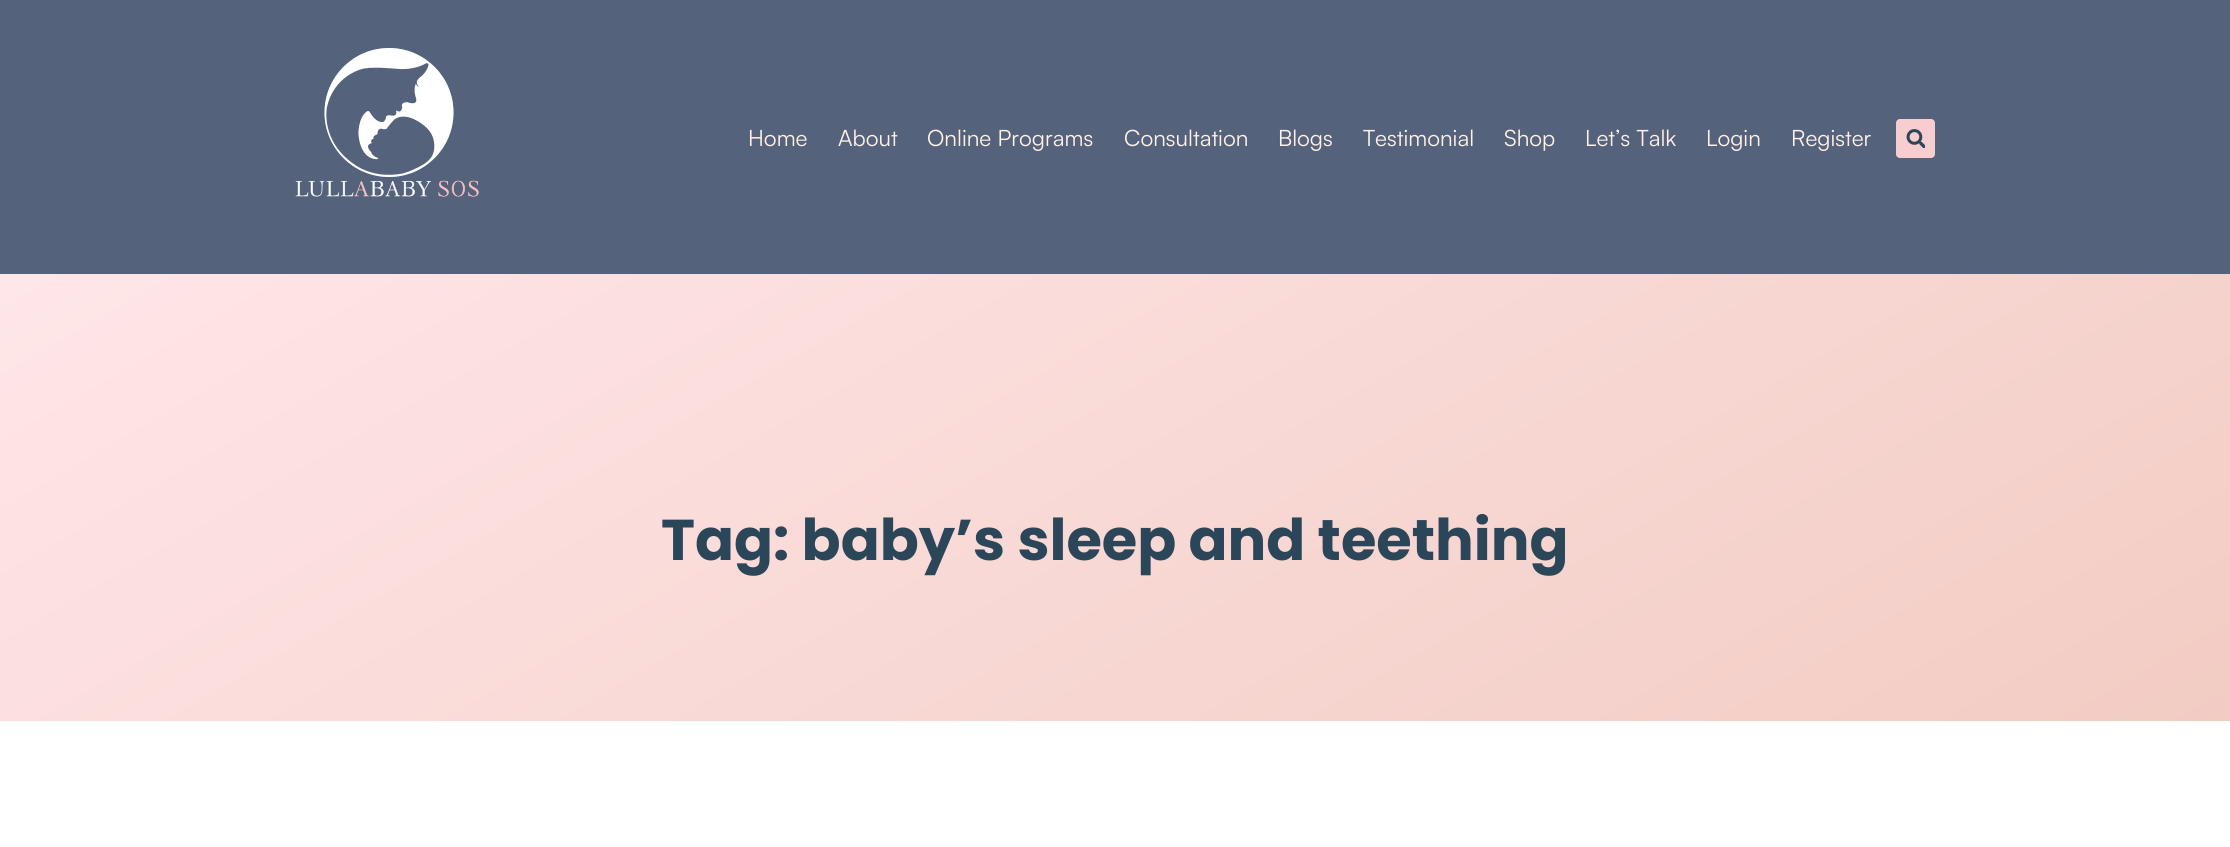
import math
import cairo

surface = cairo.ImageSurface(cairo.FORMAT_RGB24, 2230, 847)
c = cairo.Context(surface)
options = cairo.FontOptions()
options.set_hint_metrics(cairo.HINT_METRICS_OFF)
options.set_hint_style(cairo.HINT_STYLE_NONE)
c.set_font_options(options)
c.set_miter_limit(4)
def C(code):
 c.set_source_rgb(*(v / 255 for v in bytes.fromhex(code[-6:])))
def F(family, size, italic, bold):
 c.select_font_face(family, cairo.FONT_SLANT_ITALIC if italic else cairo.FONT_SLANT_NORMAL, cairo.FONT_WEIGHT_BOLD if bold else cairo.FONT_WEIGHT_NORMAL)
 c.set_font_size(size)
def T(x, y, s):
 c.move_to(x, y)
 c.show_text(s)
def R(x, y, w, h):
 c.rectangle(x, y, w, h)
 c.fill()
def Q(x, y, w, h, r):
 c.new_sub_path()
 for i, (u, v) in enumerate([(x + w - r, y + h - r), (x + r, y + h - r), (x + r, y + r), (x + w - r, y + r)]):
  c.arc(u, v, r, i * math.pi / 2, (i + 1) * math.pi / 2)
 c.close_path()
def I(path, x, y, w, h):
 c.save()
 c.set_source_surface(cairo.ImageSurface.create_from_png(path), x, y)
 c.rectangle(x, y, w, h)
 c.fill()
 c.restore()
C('ffffff')
c.paint()
C('54627b')
R(0,0,2230,274)
I('1.png',295,48,184,149)
F('Satoshi',22.5,0,0)
C('fff1e7')
T(748,146,'Home')
T(838,146,'About')
T(927,146,'Online Programs')
T(1124,146,'Consultation')
T(1278,146,'Blogs')
T(1363,146,'Testimonial')
T(1504,146,'Shop')
T(1585,146,'Let’s Talk')
T(1706,146,'Login')
T(1791,146,'Register')
C('f7cdd0')
Q(1896,119,39,39,4)
c.fill()
I('2.png',1906,129,19,19)
gradient = cairo.LinearGradient(739,-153,1491,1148)
gradient.add_color_stop_rgba(0,1,0.902,0.91,1)
gradient.add_color_stop_rgba(1,0.949,0.8,0.765,1)
c.set_source(gradient)
R(0,274,2230,447)
F('Poppins',57.5,0,1)
C('2c4659')
T(661,560,'Tag: baby’s sleep and teething')
surface.write_to_png('o.png')
